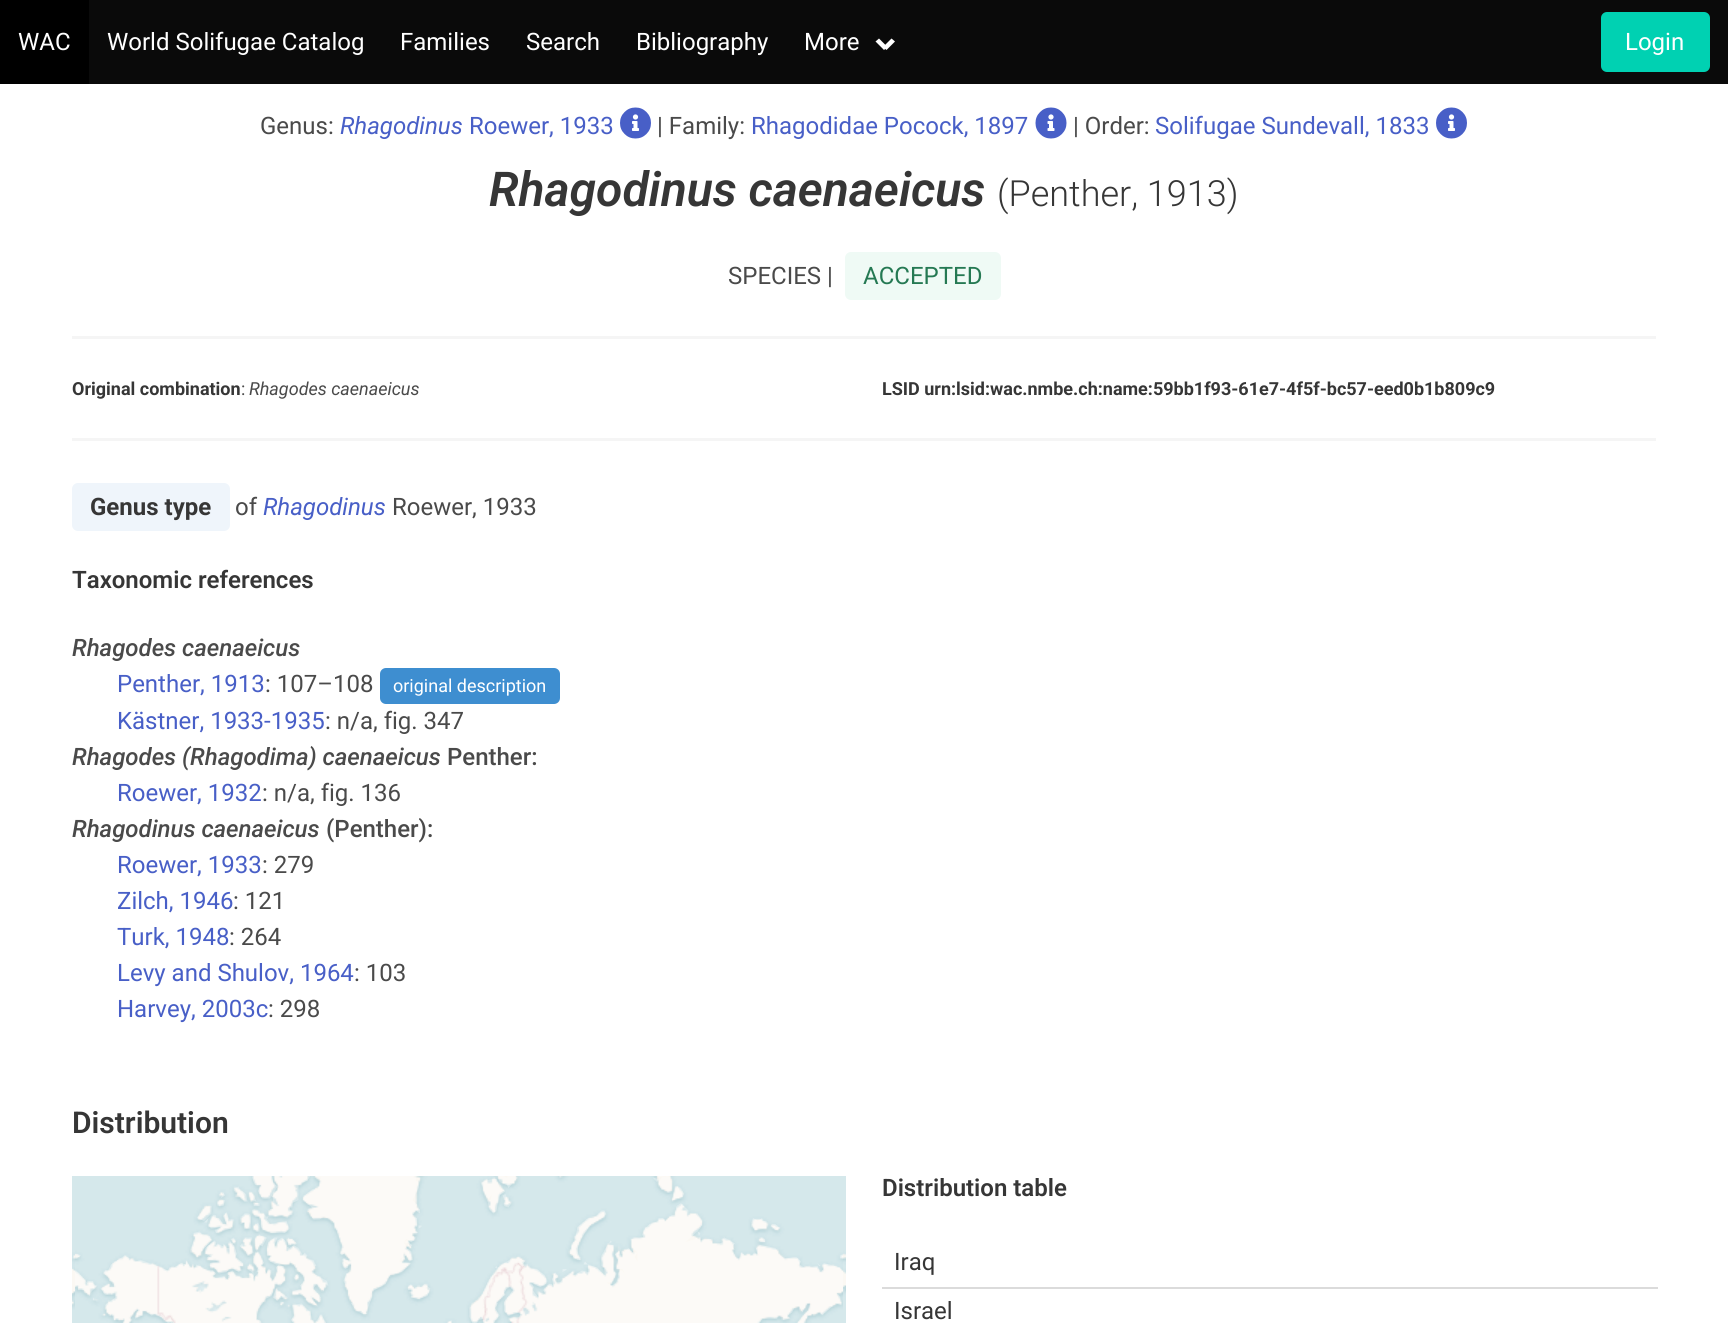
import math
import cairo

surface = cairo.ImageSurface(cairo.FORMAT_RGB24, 1728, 1323)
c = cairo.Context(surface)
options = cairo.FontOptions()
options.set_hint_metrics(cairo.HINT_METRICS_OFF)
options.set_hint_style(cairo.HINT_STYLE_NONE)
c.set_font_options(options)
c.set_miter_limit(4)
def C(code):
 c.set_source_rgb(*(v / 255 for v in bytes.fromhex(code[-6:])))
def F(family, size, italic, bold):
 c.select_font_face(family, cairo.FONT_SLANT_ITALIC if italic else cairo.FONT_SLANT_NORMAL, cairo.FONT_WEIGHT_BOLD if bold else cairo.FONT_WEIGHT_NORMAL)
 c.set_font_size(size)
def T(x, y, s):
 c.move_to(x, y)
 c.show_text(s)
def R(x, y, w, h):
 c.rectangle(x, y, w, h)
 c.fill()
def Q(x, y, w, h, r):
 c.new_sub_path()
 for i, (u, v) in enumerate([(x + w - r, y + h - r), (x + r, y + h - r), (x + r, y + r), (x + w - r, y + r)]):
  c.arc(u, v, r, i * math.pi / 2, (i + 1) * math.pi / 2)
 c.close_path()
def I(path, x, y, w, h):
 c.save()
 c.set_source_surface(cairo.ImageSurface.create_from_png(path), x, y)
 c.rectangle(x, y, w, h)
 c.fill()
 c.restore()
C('ffffff')
c.paint()
C('0a0a0a')
R(89,0,1639,84)
C('000000')
R(0,0,89,84)
F('Roboto',24,0,0)
C('ffffff')
T(18,50,'WAC')
T(107,50,'World Solifugae Catalog')
T(400,50,'Families')
T(526,50,'Search')
T(636,50,'Bibliography')
T(804,50,'More')
c.new_path()
c.move_to(883,47)
c.line_to(891.5,38.5)
c.line_to(895,41.5)
c.line_to(886.5,50)
c.close_path()
c.fill()
c.new_path()
c.move_to(875.5,41.5)
c.line_to(879,38.5)
c.line_to(887.5,47)
c.line_to(884,50)
c.close_path()
c.fill()
C('00d1b2')
Q(1601,12,109,60,6)
c.fill()
C('ffffff')
T(1625,50,'Login')
C('4a4a4a')
T(260,134,'Genus:')
F('Roboto',24,1,0)
C('485fc7')
T(340,134,'Rhagodinus')
F('Roboto',24,0,0)
T(469,134,'Roewer, 1933')
I('1.png',620,107,31,32)
C('4a4a4a')
T(657,134,'| Family:')
C('485fc7')
T(751,134,'Rhagodidae Pocock, 1897')
I('2.png',1035,107,32,32)
C('4a4a4a')
T(1073,134,'| Order:')
C('485fc7')
T(1155,134,'Solifugae Sundevall, 1833')
I('1.png',1436,107,31,32)
F('Roboto SemiBold',48,1,0)
C('363636')
T(489,206,'Rhagodinus caenaeicus')
F('Roboto Light',36,0,0)
T(997,206,'(Penther, 1913)')
F('Roboto',24,0,0)
C('4a4a4a')
T(728,284,'SPECIES |')
C('effaf5')
Q(845,252,156,48,6)
c.fill()
C('257953')
T(863,284,'ACCEPTED')
C('f5f5f5')
R(72,336,1584,3)
F('Roboto',18,0,1)
C('363636')
T(72,395,'Original combination')
F('Roboto',18,0,0)
C('4a4a4a')
T(241,395,':')
F('Roboto',18,1,0)
T(249,395,'Rhagodes caenaeicus')
F('Roboto',18,0,1)
C('363636')
T(882,395,'LSID urn:lsid:wac.nmbe.ch:name:59bb1f93-61e7-4f5f-bc57-eed0b1b809c9')
C('f5f5f5')
R(72,438,1584,3)
C('eff5fb')
Q(72,483,158,48,6)
c.fill()
F('Roboto',24,0,1)
C('363636')
T(90,515,'Genus type')
F('Roboto',24,0,0)
C('4a4a4a')
T(235,515,'of')
F('Roboto',24,1,0)
C('485fc7')
T(263,515,'Rhagodinus')
F('Roboto',24,0,0)
C('4a4a4a')
T(392,515,'Roewer, 1933')
F('Roboto SemiBold',24,0,0)
C('363636')
T(72,588,'Taxonomic references')
F('Roboto Medium',24,1,0)
C('4a4a4a')
T(72,656,'Rhagodes caenaeicus')
F('Roboto',24,0,0)
C('485fc7')
T(117,692,'Penther, 1913')
C('4a4a4a')
T(265,692,': 107–108')
C('3e8ed0')
Q(380,668,180,36,6)
c.fill()
F('Roboto',18,0,0)
C('ffffff')
T(393,692,'original description')
F('Roboto',24,0,0)
C('485fc7')
T(117,729,'Kästner, 1933-1935')
C('4a4a4a')
T(325,729,': n/a, fig. 347')
F('Roboto Medium',24,1,0)
T(72,765,'Rhagodes (Rhagodima) caenaeicus')
F('Roboto Medium',24,0,0)
T(447,765,'Penther:')
F('Roboto',24,0,0)
C('485fc7')
T(117,801,'Roewer, 1932')
C('4a4a4a')
T(262,801,': n/a, fig. 136')
F('Roboto Medium',24,1,0)
T(72,837,'Rhagodinus caenaeicus')
F('Roboto Medium',24,0,0)
T(326,837,'(Penther):')
F('Roboto',24,0,0)
C('485fc7')
T(117,873,'Roewer, 1933')
C('4a4a4a')
T(262,873,': 279')
C('485fc7')
T(117,909,'Zilch, 1946')
C('4a4a4a')
T(233,909,': 121')
C('485fc7')
T(117,945,'Turk, 1948')
C('4a4a4a')
T(229,945,': 264')
C('485fc7')
T(117,981,'Levy and Shulov, 1964')
C('4a4a4a')
T(354,981,': 103')
C('485fc7')
T(117,1017,'Harvey, 2003c')
C('4a4a4a')
T(268,1017,': 298')
F('Roboto SemiBold',30,0,0)
C('363636')
T(72,1133,'Distribution')
I('3.png',72,1176,3,147)
I('4.png',75,1176,384,147)
I('5.png',459,1176,384,147)
I('6.png',843,1176,3,147)
I('7.png',75,1176,768,147)
F('Roboto SemiBold',24,0,0)
T(882,1196,'Distribution table')
C('dbdbdb')
R(882,1287,776,2)
F('Roboto',24,0,0)
C('363636')
T(894,1270,'Iraq')
T(894,1319,'Israel')
surface.write_to_png('o.png')
